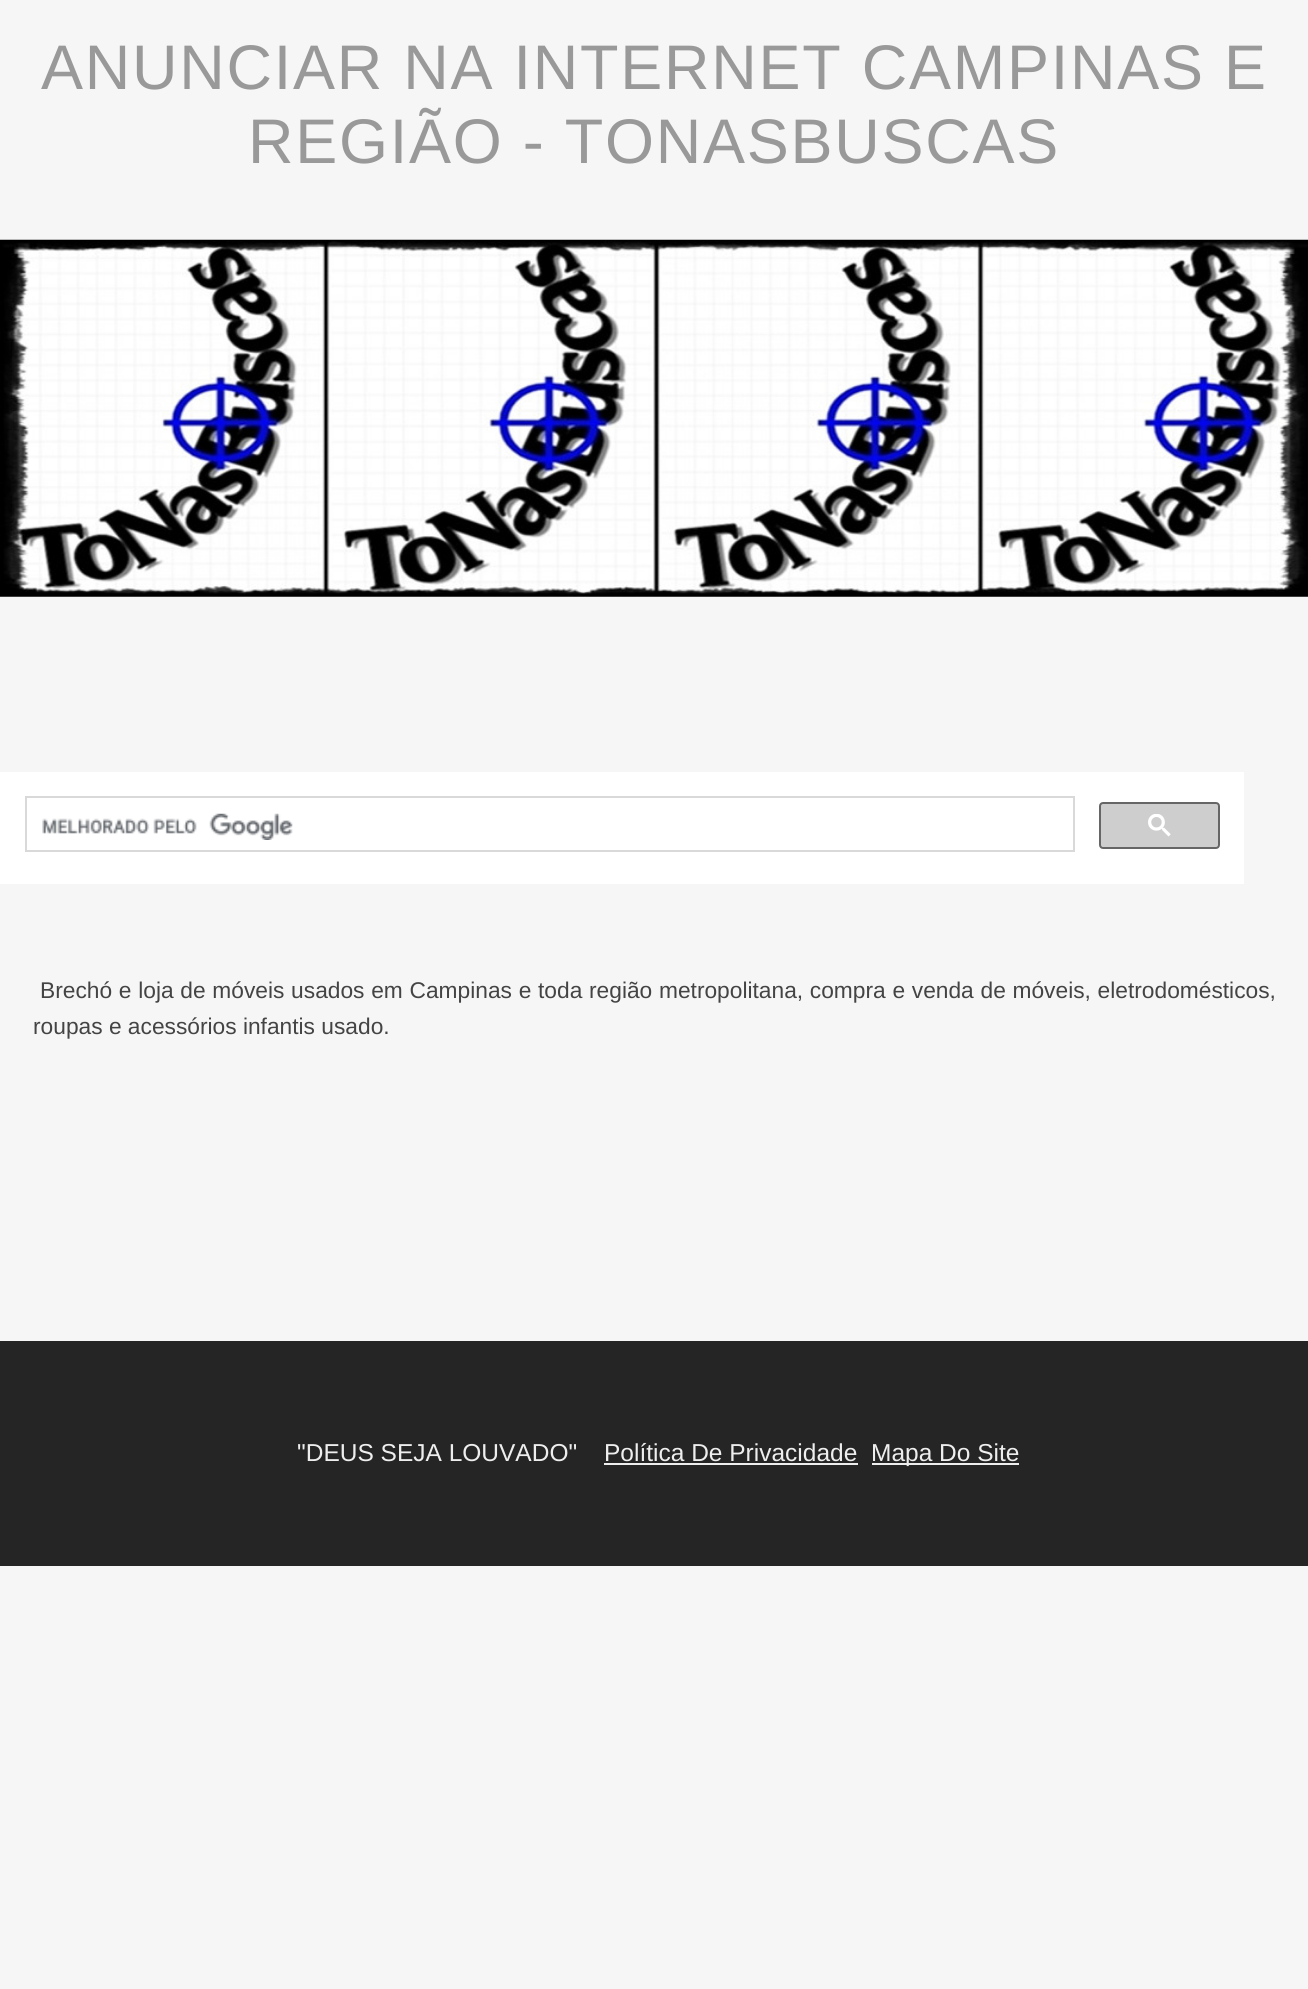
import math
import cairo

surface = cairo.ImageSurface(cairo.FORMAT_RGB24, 1308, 1989)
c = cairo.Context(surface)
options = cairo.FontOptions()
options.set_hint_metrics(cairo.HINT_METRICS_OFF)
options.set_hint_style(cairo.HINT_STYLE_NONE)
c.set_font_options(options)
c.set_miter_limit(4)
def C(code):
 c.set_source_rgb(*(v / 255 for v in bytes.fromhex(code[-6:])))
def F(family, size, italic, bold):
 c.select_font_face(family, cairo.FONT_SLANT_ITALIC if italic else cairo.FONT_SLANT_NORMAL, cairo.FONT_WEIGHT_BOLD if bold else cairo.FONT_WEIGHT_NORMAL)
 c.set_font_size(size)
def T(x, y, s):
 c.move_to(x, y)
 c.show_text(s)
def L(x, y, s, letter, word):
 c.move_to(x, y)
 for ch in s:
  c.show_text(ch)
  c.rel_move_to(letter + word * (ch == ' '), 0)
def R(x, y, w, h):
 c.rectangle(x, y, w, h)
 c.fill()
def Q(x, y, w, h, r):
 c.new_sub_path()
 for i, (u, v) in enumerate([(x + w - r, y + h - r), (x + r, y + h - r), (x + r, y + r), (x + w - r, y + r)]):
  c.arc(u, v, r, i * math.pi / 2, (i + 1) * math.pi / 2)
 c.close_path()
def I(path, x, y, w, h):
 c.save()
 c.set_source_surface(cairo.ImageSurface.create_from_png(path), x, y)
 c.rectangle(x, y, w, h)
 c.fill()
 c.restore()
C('f6f6f6')
c.paint()
F('Liberation Sans',63,0,0)
C('999999')
L(41,89,'ANUNCIAR NA INTERNET CAMPINAS E',1.75,0)
L(248,163,'REGIÃO - TONASBUSCAS',1.75,0)
I('1.png',0,239,1308,358)
C('ffffff')
R(0,772,1244,112)
c.rectangle(26,797,1048,54)
C('d9d9d9')
c.stroke()
I('2.png',42,813,251,27)
C('cecece')
Q(1100,803,119,45,3)
c.fill_preserve()
C('666666')
c.stroke()
I('3.png',1148,814,23,23)
F('Liberation Sans',22.75,0,0)
C('444444')
L(40,998,'Brechó e loja de móveis usados em Campinas e toda região metropolitana, compra e venda de móveis, eletrodomésticos,',0,.4)
T(33,1034,'roupas e acessórios infantis usado.')
C('252525')
R(0,1341,1308,225)
F('Liberation Sans',24.5,0,0)
C('eeeeee')
T(297,1461,'"DEUS SEJA LOUVADO"')
T(604,1461,'Política De Privacidade')
R(604,1463,254,2)
R(872,1463,147,2)
T(871,1461,'Mapa Do Site')
surface.write_to_png('o.png')
